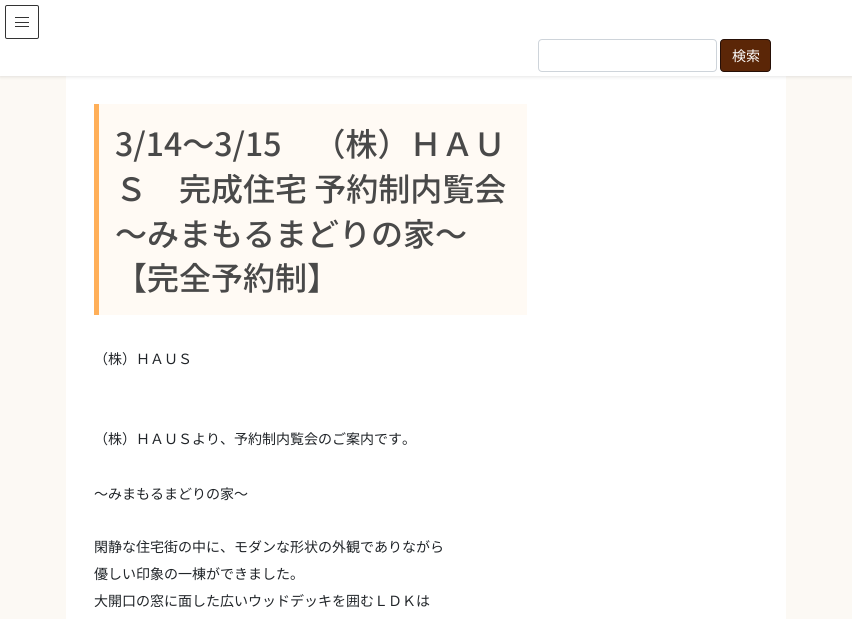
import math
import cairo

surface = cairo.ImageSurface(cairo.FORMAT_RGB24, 852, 619)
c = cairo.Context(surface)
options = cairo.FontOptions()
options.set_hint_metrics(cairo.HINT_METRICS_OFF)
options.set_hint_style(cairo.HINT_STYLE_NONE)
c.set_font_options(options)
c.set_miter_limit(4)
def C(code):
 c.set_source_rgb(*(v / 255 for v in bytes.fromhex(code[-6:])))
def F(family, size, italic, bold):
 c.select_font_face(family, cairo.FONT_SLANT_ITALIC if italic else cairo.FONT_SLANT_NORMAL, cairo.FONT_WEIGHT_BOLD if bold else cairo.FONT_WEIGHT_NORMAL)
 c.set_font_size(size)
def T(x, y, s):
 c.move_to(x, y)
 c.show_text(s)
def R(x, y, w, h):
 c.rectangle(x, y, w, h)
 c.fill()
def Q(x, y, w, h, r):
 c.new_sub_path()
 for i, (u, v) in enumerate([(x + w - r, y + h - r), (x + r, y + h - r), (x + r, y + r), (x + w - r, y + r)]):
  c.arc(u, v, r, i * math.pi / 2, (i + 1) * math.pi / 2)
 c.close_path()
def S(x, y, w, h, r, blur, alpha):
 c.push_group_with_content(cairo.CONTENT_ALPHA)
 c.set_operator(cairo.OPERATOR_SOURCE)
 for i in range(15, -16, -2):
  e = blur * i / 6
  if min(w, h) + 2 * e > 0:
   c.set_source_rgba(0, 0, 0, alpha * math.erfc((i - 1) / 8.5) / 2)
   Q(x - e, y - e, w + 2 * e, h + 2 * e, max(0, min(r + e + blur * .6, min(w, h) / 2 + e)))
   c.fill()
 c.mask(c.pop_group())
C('fcf9f4')
c.paint()
C('ffffff')
R(66,76,720,543)
C('000000')
S(0,1,852,76,0,1.5,.1)
C('ffffff')
R(0,0,852,76)
C('333333')
R(15,17,14,1)
R(15,22,14,1)
R(15,26,14,1)
Q(5.5,5.5,33,33,1.5)
c.set_line_width(1)
c.stroke()
Q(538.5,39.5,178,32,3.5)
C('ced4da')
c.stroke()
C('5b2607')
Q(720.5,39.5,50,32,3.5)
c.fill_preserve()
C('260f07')
c.stroke()
F('Noto Sans JP',14,0,0)
C('ffffff')
T(732,61,'検索')
C('fffaf4')
R(99,104,428,211)
C('ffaf58')
R(94,104,5,211)
F('Noto Sans JP Medium',32,0,0)
C('494949')
T(115,156,'3/14～3/15　（株）ＨＡＵ')
T(115,201,'Ｓ　完成住宅 予約制内覧会')
T(115,246,'～みまもるまどりの家～')
T(115,290,'【完全予約制】')
F('Noto Sans JP',14,0,0)
C('212529')
T(94,364,'（株）ＨＡＵＳ')
T(94,444,'（株）ＨＡＵＳより、予約制内覧会のご案内です。')
T(94,499,'～みまもるまどりの家～')
T(94,552,'閑静な住宅街の中に、モダンな形状の外観でありながら')
T(94,579,'優しい印象の一棟ができました。')
T(94,606,'大開口の窓に面した広いウッドデッキを囲むＬＤＫは')
surface.write_to_png('o.png')
